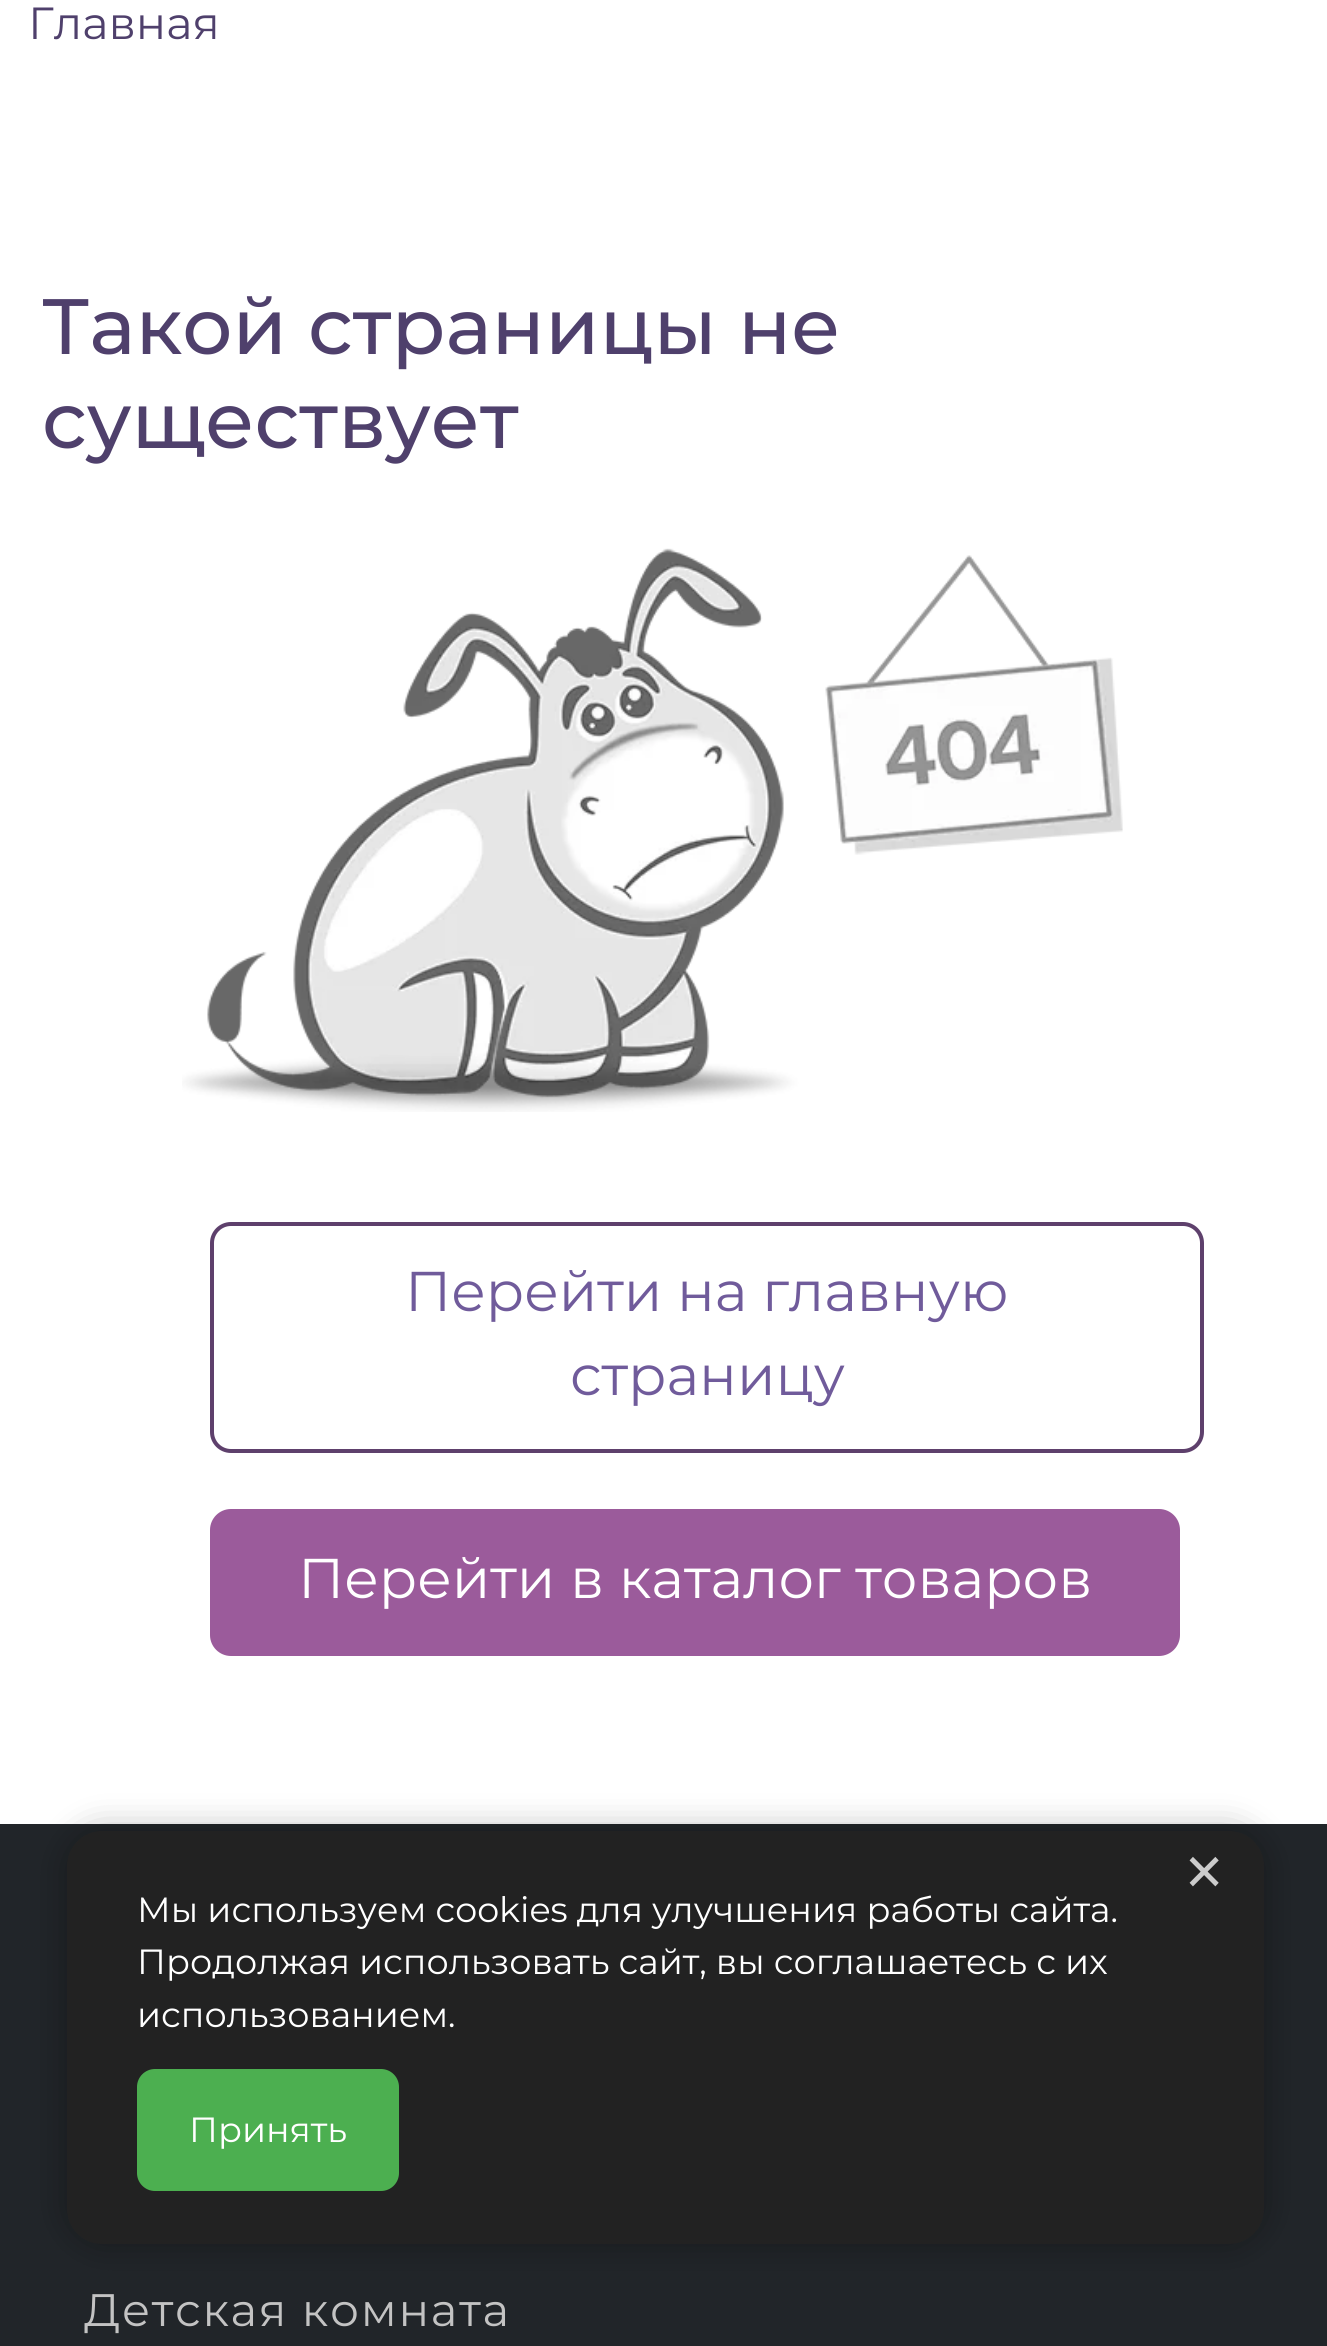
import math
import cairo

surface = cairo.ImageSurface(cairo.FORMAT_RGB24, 1327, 2346)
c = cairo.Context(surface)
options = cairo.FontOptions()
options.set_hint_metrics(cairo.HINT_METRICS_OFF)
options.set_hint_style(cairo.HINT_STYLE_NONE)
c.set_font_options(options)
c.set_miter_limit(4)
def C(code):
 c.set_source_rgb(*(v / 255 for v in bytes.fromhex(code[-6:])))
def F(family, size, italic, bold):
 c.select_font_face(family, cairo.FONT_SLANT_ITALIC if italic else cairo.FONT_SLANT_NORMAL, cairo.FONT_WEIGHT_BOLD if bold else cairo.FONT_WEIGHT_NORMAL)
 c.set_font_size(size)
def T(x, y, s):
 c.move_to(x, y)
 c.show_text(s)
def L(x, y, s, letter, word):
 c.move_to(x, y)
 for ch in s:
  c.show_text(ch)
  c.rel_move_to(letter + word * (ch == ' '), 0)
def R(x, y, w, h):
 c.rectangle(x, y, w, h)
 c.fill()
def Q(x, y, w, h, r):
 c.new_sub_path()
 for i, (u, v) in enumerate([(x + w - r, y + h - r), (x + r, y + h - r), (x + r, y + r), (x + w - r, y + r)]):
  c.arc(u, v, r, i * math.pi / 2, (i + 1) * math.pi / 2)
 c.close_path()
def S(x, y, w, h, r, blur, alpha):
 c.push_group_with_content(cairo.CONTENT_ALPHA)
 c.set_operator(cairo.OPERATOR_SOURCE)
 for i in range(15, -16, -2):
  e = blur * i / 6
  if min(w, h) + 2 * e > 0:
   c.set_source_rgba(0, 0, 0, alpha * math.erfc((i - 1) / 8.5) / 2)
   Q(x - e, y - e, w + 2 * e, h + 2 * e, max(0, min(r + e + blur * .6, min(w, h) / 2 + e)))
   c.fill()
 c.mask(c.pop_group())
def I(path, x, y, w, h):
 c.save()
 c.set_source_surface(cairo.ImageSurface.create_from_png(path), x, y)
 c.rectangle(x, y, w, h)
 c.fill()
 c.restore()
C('ffffff')
c.paint()
F('Montserrat',45,0,0)
C('4f406c')
T(28,39,'Главная')
F('Montserrat Medium',78.4,0,0)
T(42,354,'Такой страницы не')
T(42,448,'существует')
I('1.png',182,548,941,564)
Q(212,1224,990,227,19)
C('5e406c')
c.set_line_width(4)
c.stroke()
F('Montserrat',56,0,0)
C('705b9b')
T(405,1311,'Перейти на главную')
T(570,1395,'страницу')
C('9b5b9b')
Q(212,1511,966,143,19)
c.fill_preserve()
c.stroke()
C('ffffff')
T(298,1598,'Перейти в каталог товаров')
C('212529')
R(0,1824,1327,522)
C('000000')
S(67,1831,1197,413,35,17.5,.3)
C('222222')
Q(67,1831,1197,413,35)
c.fill()
F('Montserrat',84,0,0)
C('cccccc')
T(1180,1901,'×')
F('Montserrat',35,0,0)
C('ffffff')
T(137,1922,'Мы используем cookies для улучшения работы сайта.')
T(137,1974,'Продолжая использовать сайт, вы соглашаетесь с их')
T(137,2027,'использованием.')
C('4caf50')
Q(137,2069,262,122,18)
c.fill()
C('ffffff')
T(189,2142,'Принять')
F('Montserrat',45.5,0,0)
C('c3c3c3')
L(84,2326,'Детская комната',1.75,0)
surface.write_to_png('o.png')
